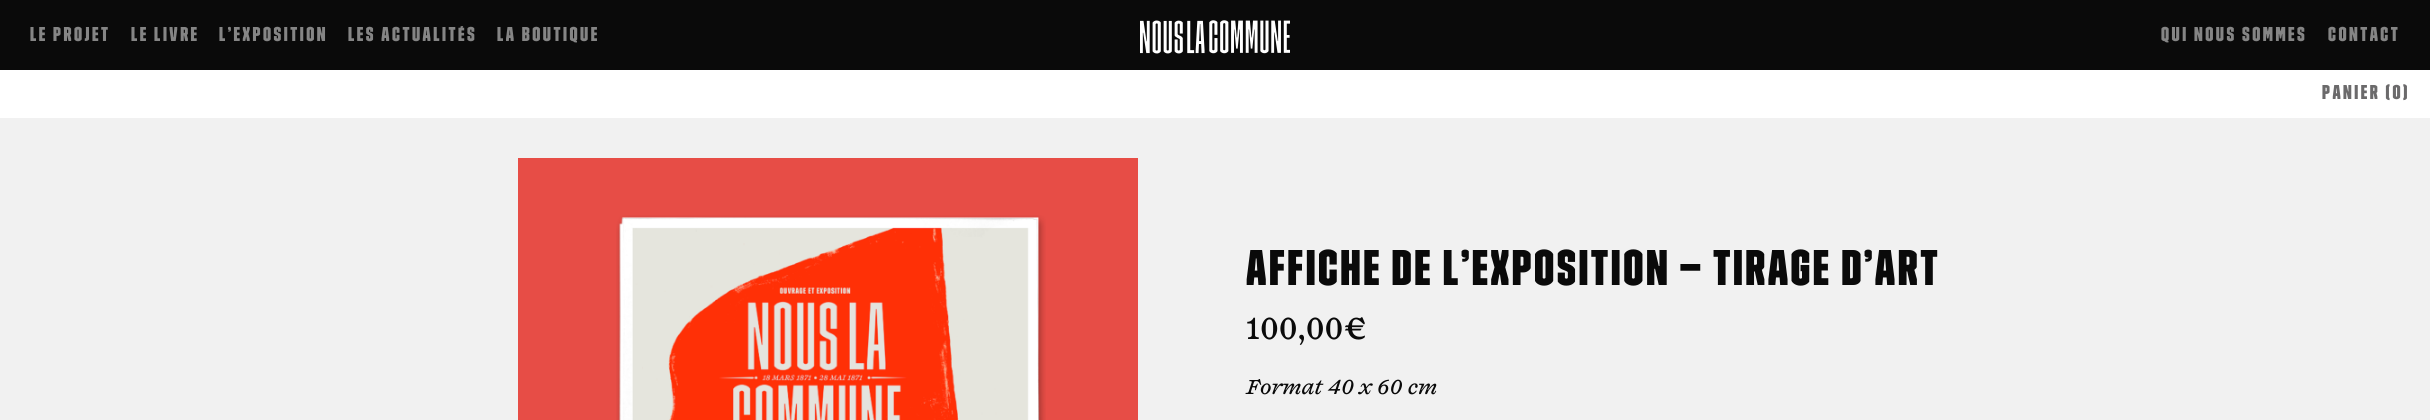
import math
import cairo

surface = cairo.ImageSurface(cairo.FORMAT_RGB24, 2430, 420)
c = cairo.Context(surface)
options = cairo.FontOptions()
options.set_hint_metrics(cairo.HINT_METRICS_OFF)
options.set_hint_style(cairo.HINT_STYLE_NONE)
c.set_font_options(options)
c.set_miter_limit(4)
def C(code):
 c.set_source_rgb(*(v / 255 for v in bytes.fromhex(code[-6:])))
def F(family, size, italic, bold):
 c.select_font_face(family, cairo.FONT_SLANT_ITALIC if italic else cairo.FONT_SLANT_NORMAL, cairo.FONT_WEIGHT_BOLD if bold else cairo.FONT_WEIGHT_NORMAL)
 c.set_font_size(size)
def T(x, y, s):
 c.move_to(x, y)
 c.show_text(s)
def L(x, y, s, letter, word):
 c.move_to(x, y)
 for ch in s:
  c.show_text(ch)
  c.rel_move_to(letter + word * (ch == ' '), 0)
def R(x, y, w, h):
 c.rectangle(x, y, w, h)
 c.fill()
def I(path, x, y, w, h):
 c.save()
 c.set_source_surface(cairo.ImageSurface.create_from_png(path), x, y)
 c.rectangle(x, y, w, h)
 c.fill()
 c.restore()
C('f1f1f1')
c.paint()
C('0a0a0a')
R(0,0,2430,70)
F('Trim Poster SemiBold',20,0,0)
C('858585')
L(30,41,'LE PROJET',2.5,0)
L(131,41,'LE LIVRE',2.5,0)
L(219,41,'L’EXPOSITION',2.5,0)
L(348,41,'LES ACTUALITÉS',2.5,0)
L(497,41,'LA BOUTIQUE',2.5,0)
I('1.png',1140,20,150,34)
L(2161,41,'QUI NOUS SOMMES',2.5,0)
L(2328,41,'CONTACT',2.5,0)
C('ffffff')
R(0,70,2430,48)
C('6b6a6b')
L(2322,99,'PANIER (0)',2.5,0)
C('e74d46')
R(518,158,620,262)
I('2.png',616,215,430,205)
F('Trim Poster SemiBold',50,0,0)
C('0a0a0a')
L(1246,285,'AFFICHE DE L’EXPOSITION – TIRAGE D’ART',2.5,0)
F('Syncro',30,0,0)
T(1246,339,'100,00€')
F('Syncro',20,1,0)
T(1246,394,'Format 40 x 60 cm')
surface.write_to_png('o.png')
